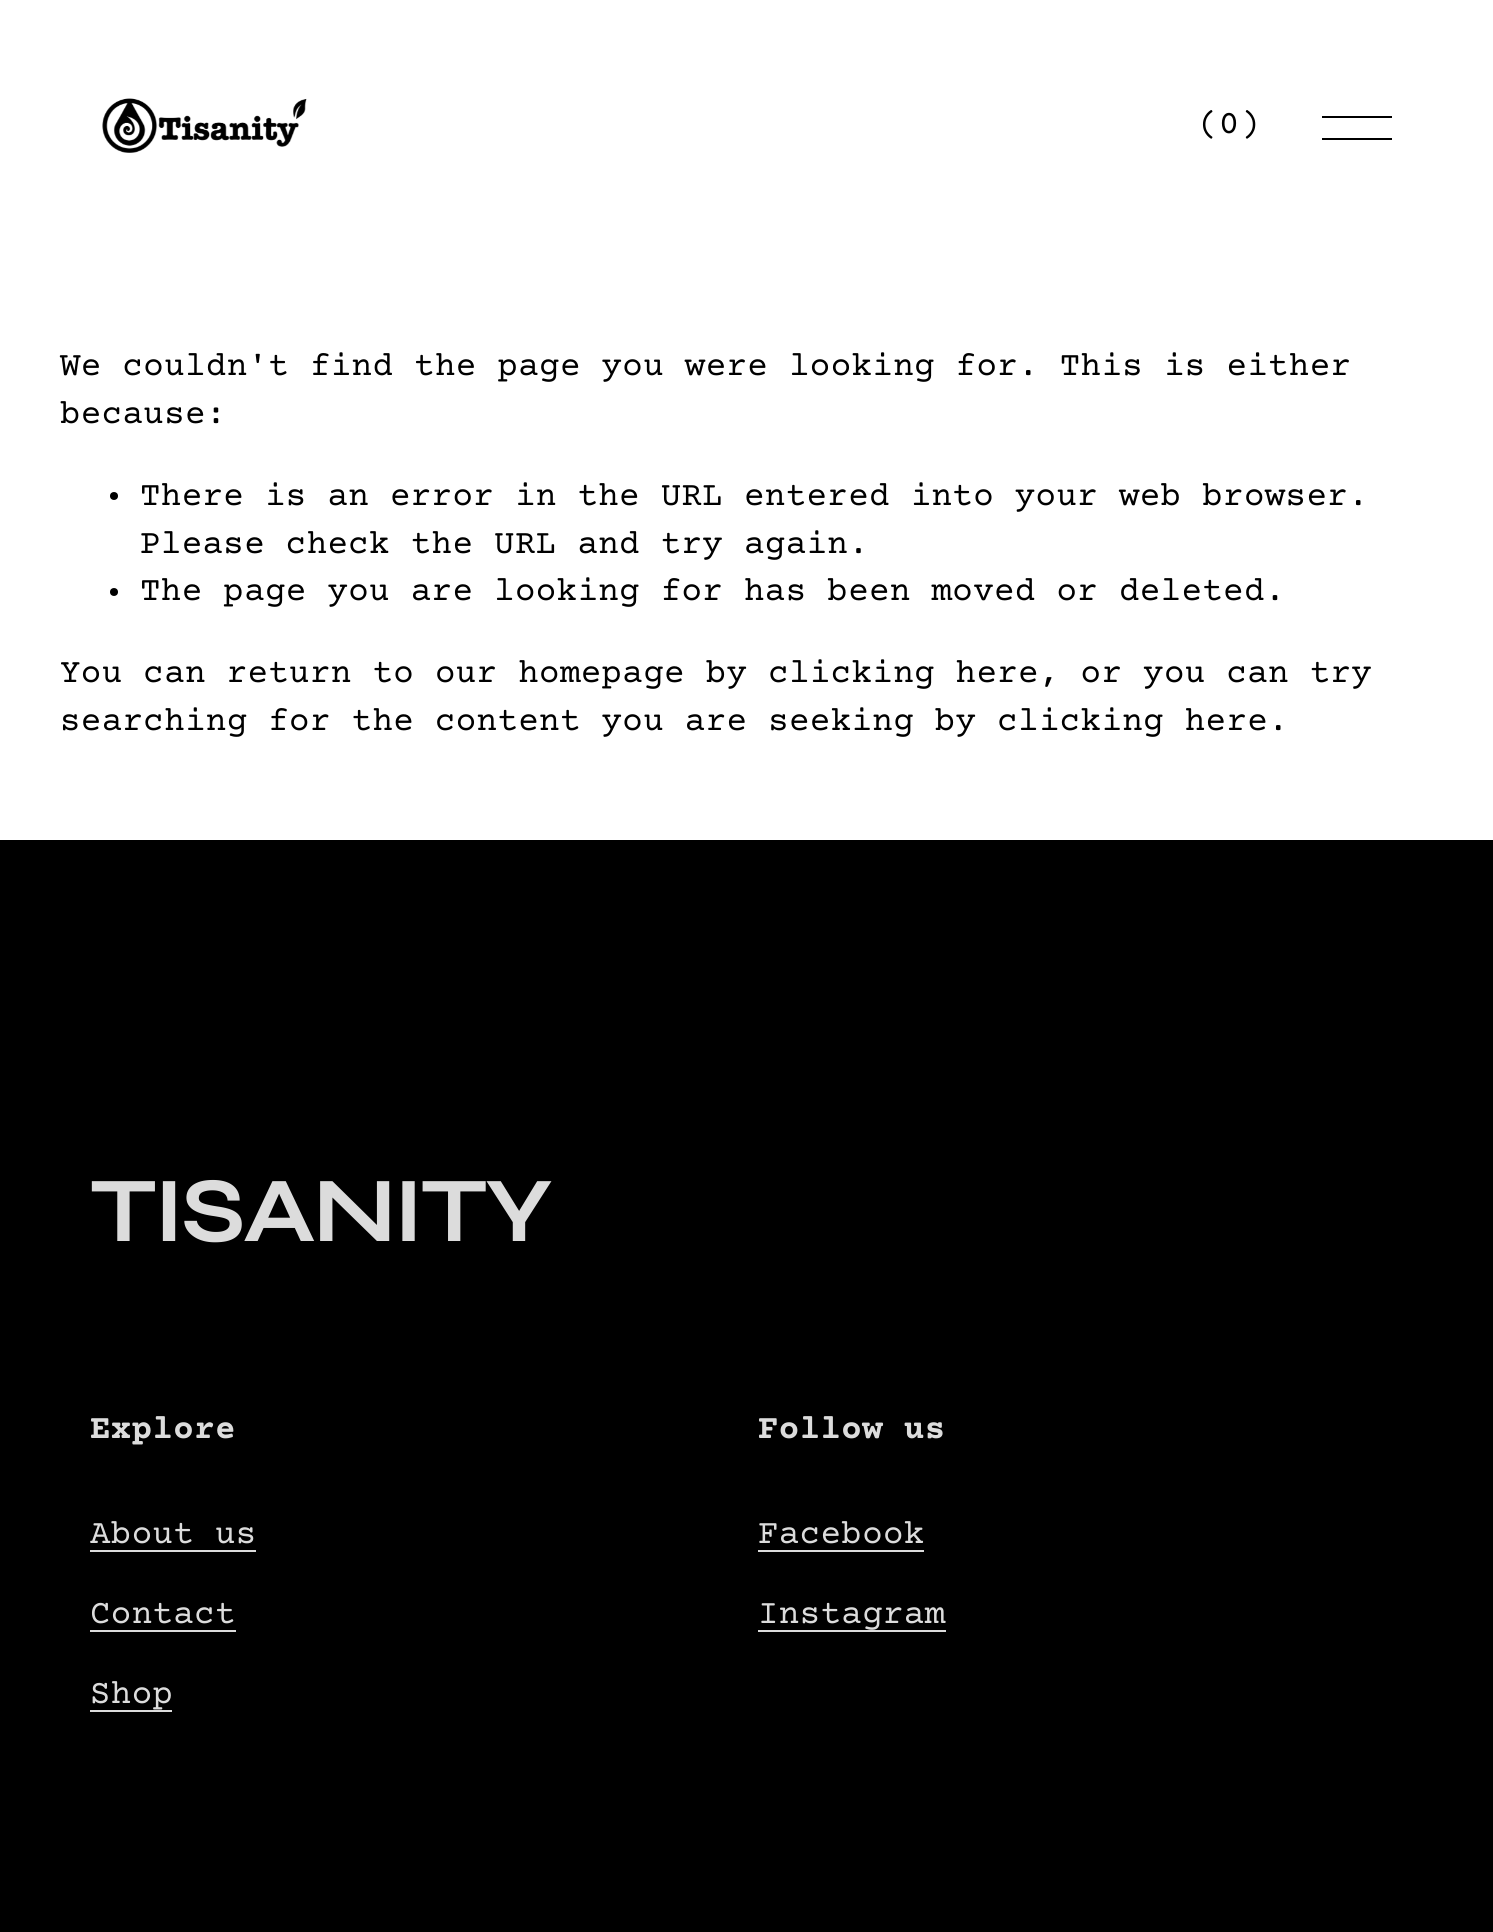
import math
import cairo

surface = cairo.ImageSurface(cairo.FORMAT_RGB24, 1493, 1932)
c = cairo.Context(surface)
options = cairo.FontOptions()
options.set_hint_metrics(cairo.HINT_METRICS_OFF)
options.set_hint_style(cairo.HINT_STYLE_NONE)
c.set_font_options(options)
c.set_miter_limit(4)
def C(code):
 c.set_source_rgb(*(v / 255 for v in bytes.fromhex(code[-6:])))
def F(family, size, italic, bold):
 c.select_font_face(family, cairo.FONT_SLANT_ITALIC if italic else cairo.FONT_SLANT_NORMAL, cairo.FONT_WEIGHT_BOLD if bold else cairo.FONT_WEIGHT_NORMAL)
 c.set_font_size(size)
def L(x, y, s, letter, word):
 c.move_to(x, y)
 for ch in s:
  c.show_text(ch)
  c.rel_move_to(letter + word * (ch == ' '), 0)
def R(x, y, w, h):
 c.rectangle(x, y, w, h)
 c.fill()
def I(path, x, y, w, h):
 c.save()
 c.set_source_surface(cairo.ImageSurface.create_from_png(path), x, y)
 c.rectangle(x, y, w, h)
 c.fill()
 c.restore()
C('ffffff')
c.paint()
I('1.png',102,98,205,55)
F('Courier Prime',34.15,0,0)
C('000000')
L(1198,133,'(0)',.35,0)
R(1322,116,70,2)
R(1322,138,70,2)
L(60,375,'We couldn\'t find the page you were looking for. This is either',.35,0)
L(60,423,'because:',.35,0)
c.new_path()
c.arc(114,496,4,0,2 * math.pi)
c.fill()
L(140,505,'There is an error in the URL entered into your web browser.',.35,0)
L(140,553,'Please check the URL and try again.',.35,0)
c.new_path()
c.arc(114,592,4,0,2 * math.pi)
c.fill()
L(140,600,'The page you are looking for has been moved or deleted.',.35,0)
L(60,682,'You can return to our homepage by clicking here, or you can try',.35,0)
L(60,730,'searching for the content you are seeking by clicking here.',.35,0)
R(0,840,1493,1092)
F('Syne',92.5,0,1)
C('dcdcdc')
L(90,1241,'TISANITY',-2.75,0)
F('Courier Prime',34.15,0,1)
L(90,1438,'Explore',.35,0)
L(758,1438,'Follow us',.35,0)
F('Courier Prime',34.15,0,0)
L(90,1543,'About us',.35,0)
R(90,1550,166,2)
L(90,1623,'Contact',.35,0)
R(90,1630,146,2)
L(90,1703,'Shop',.35,0)
R(90,1710,82,2)
L(758,1543,'Facebook',.35,0)
R(758,1550,166,2)
L(758,1623,'Instagram',.35,0)
R(758,1630,188,2)
surface.write_to_png('o.png')
